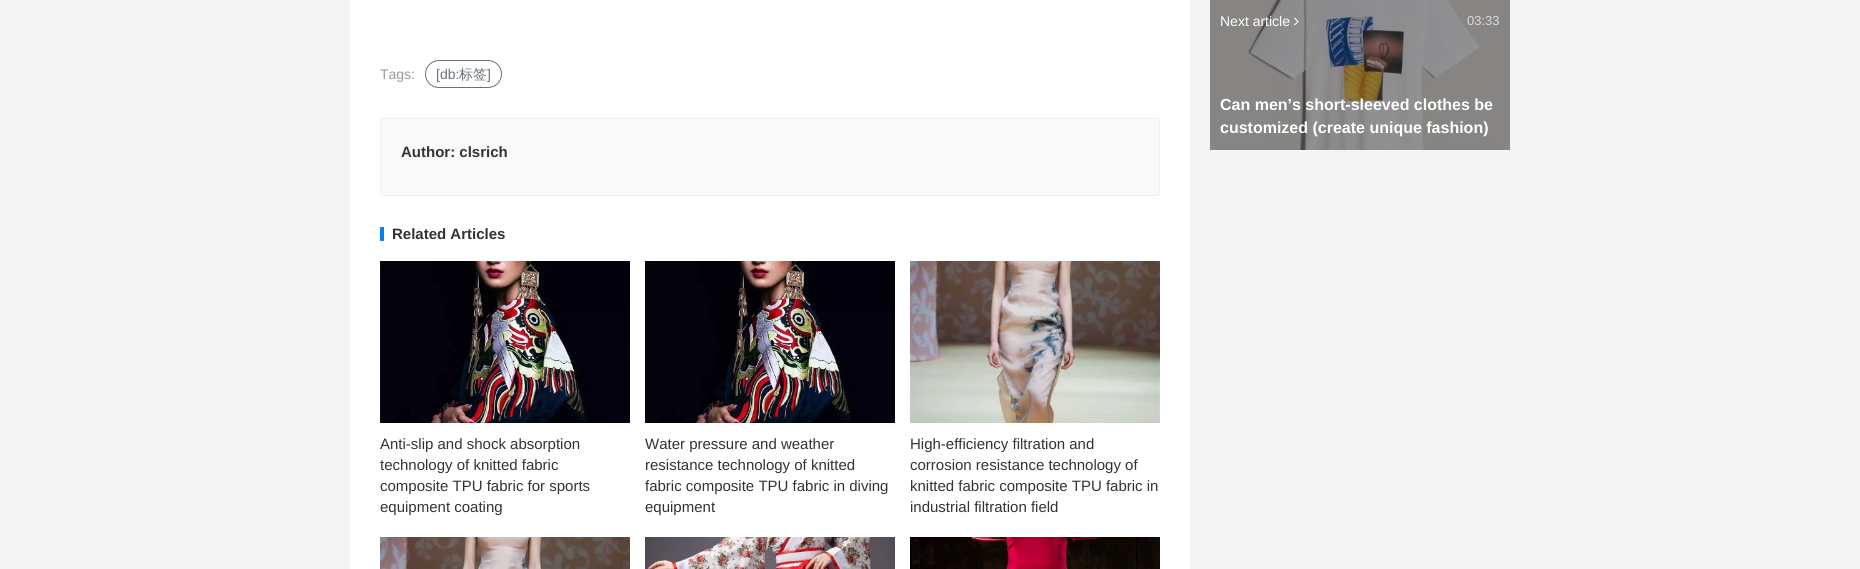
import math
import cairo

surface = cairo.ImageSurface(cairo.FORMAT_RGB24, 1860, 569)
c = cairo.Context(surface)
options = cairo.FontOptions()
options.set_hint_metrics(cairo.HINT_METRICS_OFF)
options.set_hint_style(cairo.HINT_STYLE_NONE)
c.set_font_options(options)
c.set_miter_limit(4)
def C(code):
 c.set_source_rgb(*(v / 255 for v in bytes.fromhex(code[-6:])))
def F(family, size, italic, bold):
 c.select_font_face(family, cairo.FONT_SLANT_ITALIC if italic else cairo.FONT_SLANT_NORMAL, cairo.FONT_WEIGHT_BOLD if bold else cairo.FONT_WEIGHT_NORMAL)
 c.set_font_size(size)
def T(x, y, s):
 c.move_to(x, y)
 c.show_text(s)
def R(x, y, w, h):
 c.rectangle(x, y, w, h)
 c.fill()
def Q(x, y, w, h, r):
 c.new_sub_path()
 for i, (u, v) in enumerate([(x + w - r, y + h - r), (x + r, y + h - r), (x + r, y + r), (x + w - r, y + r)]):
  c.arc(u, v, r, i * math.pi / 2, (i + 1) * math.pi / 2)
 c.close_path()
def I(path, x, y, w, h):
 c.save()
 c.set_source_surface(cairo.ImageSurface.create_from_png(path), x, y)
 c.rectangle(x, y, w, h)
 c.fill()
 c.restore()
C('f4f4f4')
c.paint()
C('ffffff')
R(350,0,840,569)
F('Liberation Sans',14,0,0)
C('999999')
T(380,79,'Tags:')
Q(425.5,60.5,76,27,13.5)
C('68727d')
c.set_line_width(1)
c.stroke()
T(436,79,'[db:')
F('WenQuanYi Zen Hei Medium',14,0,0)
T(459,79,'标签')
F('Liberation Sans',14,0,0)
T(487,79,']')
C('f9f9f9')
Q(380.5,118.5,779,77,2.5)
c.fill_preserve()
C('efefef')
c.stroke()
F('Liberation Sans',15,0,1)
C('333333')
T(401,157,'Author: clsrich')
C('037ef3')
Q(380,227,4,14,1)
c.fill()
C('333333')
T(392,239,'Related Articles')
I('1.png',380,261,250,162)
F('Liberation Sans',15,0,0)
T(380,449,'Anti-slip and shock absorption')
T(380,470,'technology of knitted fabric')
T(380,491,'composite TPU fabric for sports')
T(380,512,'equipment coating')
I('2.png',645,261,250,162)
T(645,449,'Water pressure and weather')
T(645,470,'resistance technology of knitted')
T(645,491,'fabric composite TPU fabric in diving')
T(645,512,'equipment')
I('3.png',910,261,250,162)
T(910,449,'High-efficiency filtration and')
T(910,470,'corrosion resistance technology of')
T(910,491,'knitted fabric composite TPU fabric in')
T(910,512,'industrial filtration field')
I('4.png',380,537,250,32)
I('5.png',645,537,250,32)
I('6.png',910,537,250,32)
I('7.png',1210,0,300,150)
F('Liberation Sans',14,0,0)
C('ffffff')
T(1220,26,'Next article')
I('8.png',1294,17,5,9)
F('Liberation Sans',13,0,0)
C('dbdada')
T(1467,25,'03:33')
F('Liberation Sans',16,0,1)
C('ffffff')
T(1220,110,'Can men’s short-sleeved clothes be')
T(1220,133,'customized (create unique fashion)')
surface.write_to_png('o.png')
